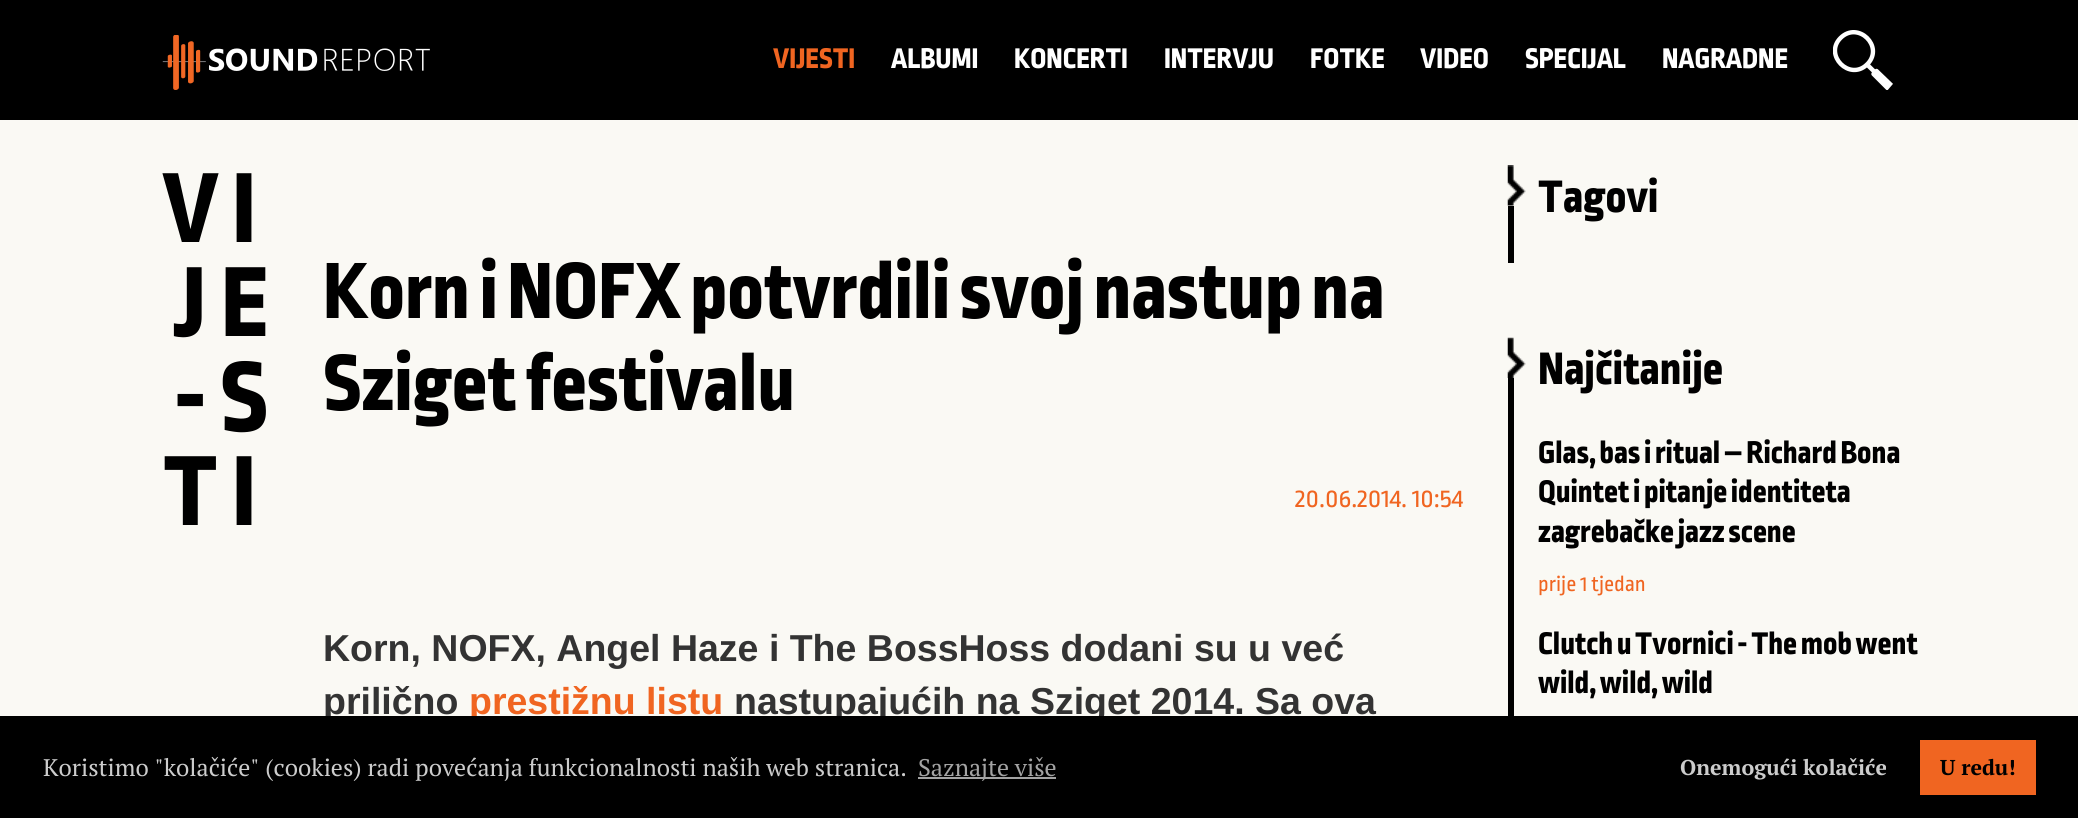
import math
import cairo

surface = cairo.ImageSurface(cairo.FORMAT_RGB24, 2078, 818)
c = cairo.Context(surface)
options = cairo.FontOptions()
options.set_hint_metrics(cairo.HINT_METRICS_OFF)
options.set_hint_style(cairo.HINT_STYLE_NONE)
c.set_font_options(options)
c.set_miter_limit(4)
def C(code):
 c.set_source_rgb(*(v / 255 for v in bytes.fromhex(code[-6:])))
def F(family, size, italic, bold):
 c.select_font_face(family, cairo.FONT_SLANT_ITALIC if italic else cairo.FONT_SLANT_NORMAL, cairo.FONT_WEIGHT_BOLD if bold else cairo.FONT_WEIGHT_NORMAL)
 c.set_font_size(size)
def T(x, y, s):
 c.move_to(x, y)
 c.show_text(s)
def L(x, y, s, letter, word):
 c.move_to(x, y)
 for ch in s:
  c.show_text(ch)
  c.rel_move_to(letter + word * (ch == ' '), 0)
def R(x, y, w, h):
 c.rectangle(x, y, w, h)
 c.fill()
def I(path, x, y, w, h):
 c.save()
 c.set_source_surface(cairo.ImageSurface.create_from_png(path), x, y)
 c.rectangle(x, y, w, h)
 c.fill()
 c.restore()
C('faf9f4')
c.paint()
C('000000')
R(0,0,2078,120)
I('1.png',162,35,268,55)
F('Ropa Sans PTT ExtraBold',30,0,0)
C('f06521')
T(773,68,'VIJESTI')
C('ffffff')
T(891,68,'ALBUMI')
T(1014,68,'KONCERTI')
T(1164,68,'INTERVJU')
T(1310,68,'FOTKE')
T(1420,68,'VIDEO')
T(1525,68,'SPECIJAL')
T(1662,68,'NAGRADNE')
c.save()
c.rectangle(1833,30,60,60)
c.clip()
c.new_path()
c.move_to(1867.5,64)
c.curve_to(1884.5,46.5,1858,20.5,1840.5,38)
c.curve_to(1823.5,55,1849.5,81.5,1867,64.5)
c.line_to(1888,85)
c.move_to(1876.5,71)
c.line_to(1890,84)
c.line_to(1887,87.5)
c.line_to(1873.5,74)
c.set_line_width(4.4)
c.set_line_cap(cairo.LINE_CAP_ROUND)
c.stroke()
c.restore()
F('Ropa Sans PTT ExtraBold',105,0,0)
C('000000')
L(162,242,'V',-3,0)
L(232,242,'I',-3,0)
L(174,336,'J',-3,0)
L(221,336,'E',-3,0)
L(174,431,'-',-3,0)
L(220,431,'S',-3,0)
L(163,525,'T',-3,0)
L(232,525,'I',-3,0)
F('Ropa Sans PTT ExtraBold',84,0,0)
T(323,318,'Korn i NOFX potvrdili svoj nastup na')
T(323,410,'Sziget festivalu')
F('Ropa Sans',27,0,0)
C('f06521')
T(1295,507,'20.06.2014. 10:54')
F('Liberation Sans',37.5,0,1)
C('333333')
T(323,661,'Korn, NOFX, Angel Haze i The BossHoss dodani su u već')
T(323,714,'prilično')
C('f06521')
T(469,714,'prestižnu listu')
C('333333')
T(734,714,'nastupajućih na Sziget 2014. Sa ova')
I('2.png',1507,165,19,41)
F('Ropa Sans PTT ExtraBold',48,0,0)
C('000000')
T(1538,212,'Tagovi')
R(1508,206,6,57)
I('3.png',1507,337,19,41)
T(1538,384,'Najčitanije')
R(1508,378,6,338)
F('Ropa Sans PTT ExtraBold',33,0,0)
T(1538,463,'Glas, bas i ritual – Richard Bona')
T(1538,502,'Quintet i pitanje identiteta')
T(1538,542,'zagrebačke jazz scene')
F('Ropa Sans',22.5,0,0)
C('f06521')
T(1538,591,'prije 1 tjedan')
F('Ropa Sans PTT ExtraBold',33,0,0)
C('000000')
T(1538,654,'Clutch u Tvornici - The mob went')
T(1538,693,'wild, wild, wild')
R(0,716,2078,102)
F('PT Serif',24,0,0)
C('cccccc')
T(43,776,'Koristimo "kolačiće" (cookies) radi povećanja funkcionalnosti naših web stranica.')
C('a3a3a3')
R(918,777,138,2)
T(918,776,'Saznajte više')
F('PT Serif',21.5,0,1)
C('cccccc')
T(1680,775,'Onemogući kolačiće')
C('f06521')
R(1920,740,116,55)
C('000000')
T(1940,775,'U redu!')
surface.write_to_png('o.png')
